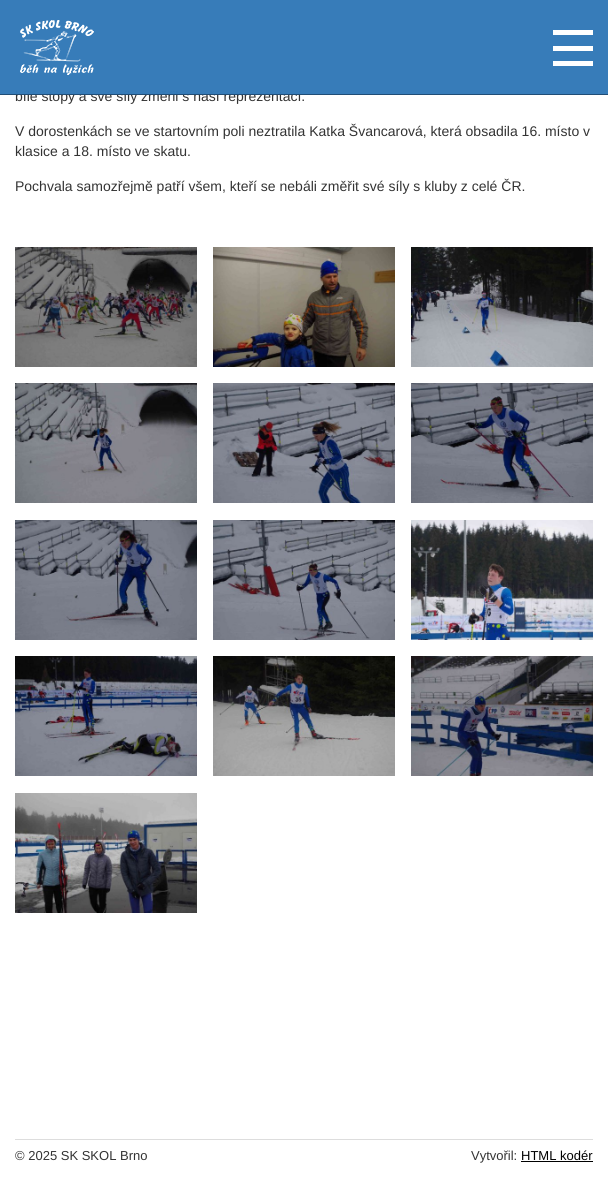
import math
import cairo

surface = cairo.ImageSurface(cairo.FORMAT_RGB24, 608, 1196)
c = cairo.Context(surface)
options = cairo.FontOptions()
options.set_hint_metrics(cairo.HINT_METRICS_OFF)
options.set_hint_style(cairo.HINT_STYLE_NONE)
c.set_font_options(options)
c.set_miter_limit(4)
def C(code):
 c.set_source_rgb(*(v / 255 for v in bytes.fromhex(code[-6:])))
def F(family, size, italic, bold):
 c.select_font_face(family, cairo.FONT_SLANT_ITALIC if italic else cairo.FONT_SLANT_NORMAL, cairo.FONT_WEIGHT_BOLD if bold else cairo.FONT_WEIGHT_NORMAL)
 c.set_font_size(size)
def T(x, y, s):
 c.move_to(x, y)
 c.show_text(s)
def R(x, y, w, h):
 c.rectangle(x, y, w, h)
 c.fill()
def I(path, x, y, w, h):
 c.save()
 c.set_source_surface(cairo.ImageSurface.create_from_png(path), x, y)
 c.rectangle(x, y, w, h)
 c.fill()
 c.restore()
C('ffffff')
c.paint()
F('Liberation Sans',14,0,0)
C('333333')
T(15,101,'bílé stopy a své síly změřil s naší reprezentací.')
c.set_source_rgba(0.2,0.478,0.718,0.98)
R(0,0,608,95)
c.set_source_rgba(0.125,0.302,0.455,0.98)
R(0,94,608,1)
I('1.png',20,20,74,55)
C('ffffff')
R(553,30,40,5)
R(553,46,40,5)
R(553,61,40,5)
C('333333')
T(15,136,'V dorostenkách se ve startovním poli neztratila Katka Švancarová, která obsadila 16. místo v')
T(15,156,'klasice a 18. místo ve skatu.')
T(15,191,'Pochvala samozřejmě patří všem, kteří se nebáli změřit své síly s kluby z celé ČR.')
I('2.png',15,247,182,120)
I('3.png',213,247,182,120)
I('4.png',411,247,182,120)
I('5.png',15,383,182,120)
I('6.png',213,383,182,120)
I('7.png',411,383,182,120)
I('8.png',15,520,182,120)
I('9.png',213,520,182,120)
I('10.png',411,520,182,120)
I('11.png',15,656,182,120)
I('12.png',213,656,182,120)
I('13.png',411,656,182,120)
I('14.png',15,793,182,120)
C('dddddd')
R(15,1139,578,1)
F('Liberation Sans',13,0,0)
C('333333')
T(15,1160,'© 2025 SK SKOL Brno')
T(471,1160,'Vytvořil:')
C('000000')
T(521,1160,'HTML kodér')
R(521,1161,72,1)
surface.write_to_png('o.png')
